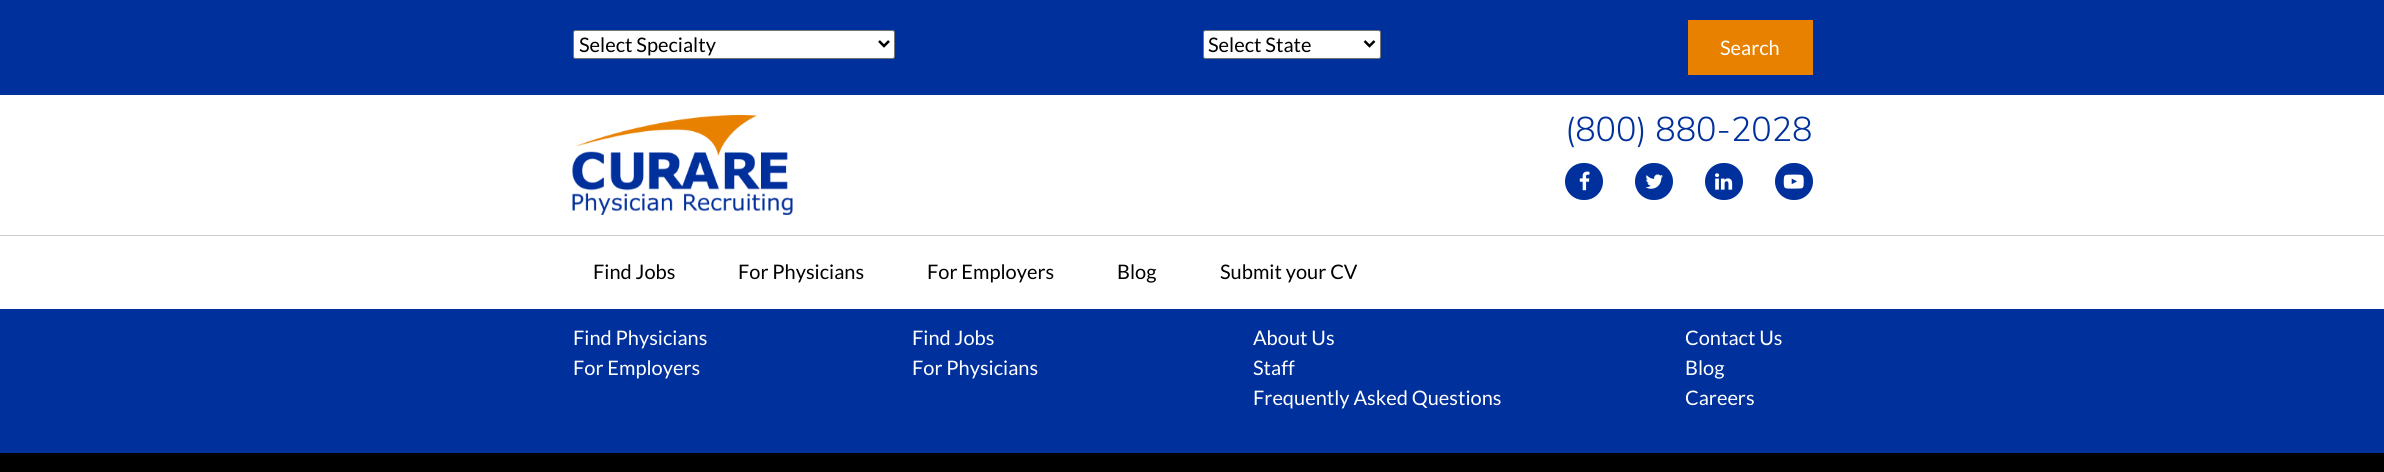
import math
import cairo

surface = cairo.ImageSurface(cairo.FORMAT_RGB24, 2384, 472)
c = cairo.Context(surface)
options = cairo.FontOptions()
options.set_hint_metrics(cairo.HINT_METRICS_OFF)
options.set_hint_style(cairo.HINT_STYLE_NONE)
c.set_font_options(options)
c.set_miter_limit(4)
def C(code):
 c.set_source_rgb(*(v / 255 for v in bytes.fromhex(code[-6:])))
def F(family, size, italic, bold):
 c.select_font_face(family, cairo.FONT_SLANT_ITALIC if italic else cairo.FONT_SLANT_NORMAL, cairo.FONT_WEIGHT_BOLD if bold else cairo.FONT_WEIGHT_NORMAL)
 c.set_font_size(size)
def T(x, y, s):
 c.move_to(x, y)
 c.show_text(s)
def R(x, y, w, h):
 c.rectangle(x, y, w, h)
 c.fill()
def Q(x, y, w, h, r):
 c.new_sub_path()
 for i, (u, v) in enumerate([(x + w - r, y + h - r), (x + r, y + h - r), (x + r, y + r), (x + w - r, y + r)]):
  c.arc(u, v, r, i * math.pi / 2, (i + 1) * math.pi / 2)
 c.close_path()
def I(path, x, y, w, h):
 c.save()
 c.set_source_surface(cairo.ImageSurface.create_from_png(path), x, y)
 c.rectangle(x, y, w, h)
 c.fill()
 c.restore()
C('00309b')
c.paint()
C('ffffff')
Q(573.5,30.5,321,28,2)
c.fill_preserve()
C('767676')
c.set_line_width(1)
c.stroke()
c.new_path()
c.move_to(879,41)
c.line_to(884,46)
c.line_to(889,41)
C('000000')
c.set_line_width(2.5)
c.stroke()
F('Lato',20,0,0)
T(579,52,'Select Specialty')
C('ffffff')
Q(1203.5,30.5,177,28,2)
c.fill_preserve()
C('767676')
c.set_line_width(1)
c.stroke()
c.new_path()
c.move_to(1364.5,41)
c.line_to(1369.5,46)
c.line_to(1374.5,41)
C('000000')
c.set_line_width(2.5)
c.stroke()
T(1208,52,'Select State')
C('e88100')
R(1688,20,125,55)
C('ffffff')
T(1720,55,'Search')
R(0,95,2384,214)
I('1.png',572,115,221,100)
F('Muli Light',34,0,0)
C('00309b')
T(1565,141,'(800) 880-2028')
Q(1565,163,38,37,18.5)
c.fill()
I('2.png',1579,171,11,20)
Q(1635,163,38,37,18.5)
c.fill()
I('3.png',1645,174,18,15)
Q(1705,163,38,37,18.5)
c.fill()
I('4.png',1715,173,18,17)
Q(1775,163,38,37,18.5)
c.fill()
I('5.png',1783,174,21,15)
C('cccccc')
R(0,235,2384,1)
F('Lato',20,0,0)
C('000000')
T(593,279,'Find Jobs')
T(738,279,'For Physicians')
T(927,279,'For Employers')
T(1117,279,'Blog')
T(1220,279,'Submit your CV')
C('ffffff')
T(573,345,'Find Physicians')
T(573,375,'For Employers')
T(912,345,'Find Jobs')
T(912,375,'For Physicians')
T(1253,345,'About Us')
T(1253,375,'Staff')
T(1253,405,'Frequently Asked Questions')
T(1685,345,'Contact Us')
T(1685,375,'Blog')
T(1685,405,'Careers')
C('000000')
R(0,453,2384,19)
surface.write_to_png('o.png')
